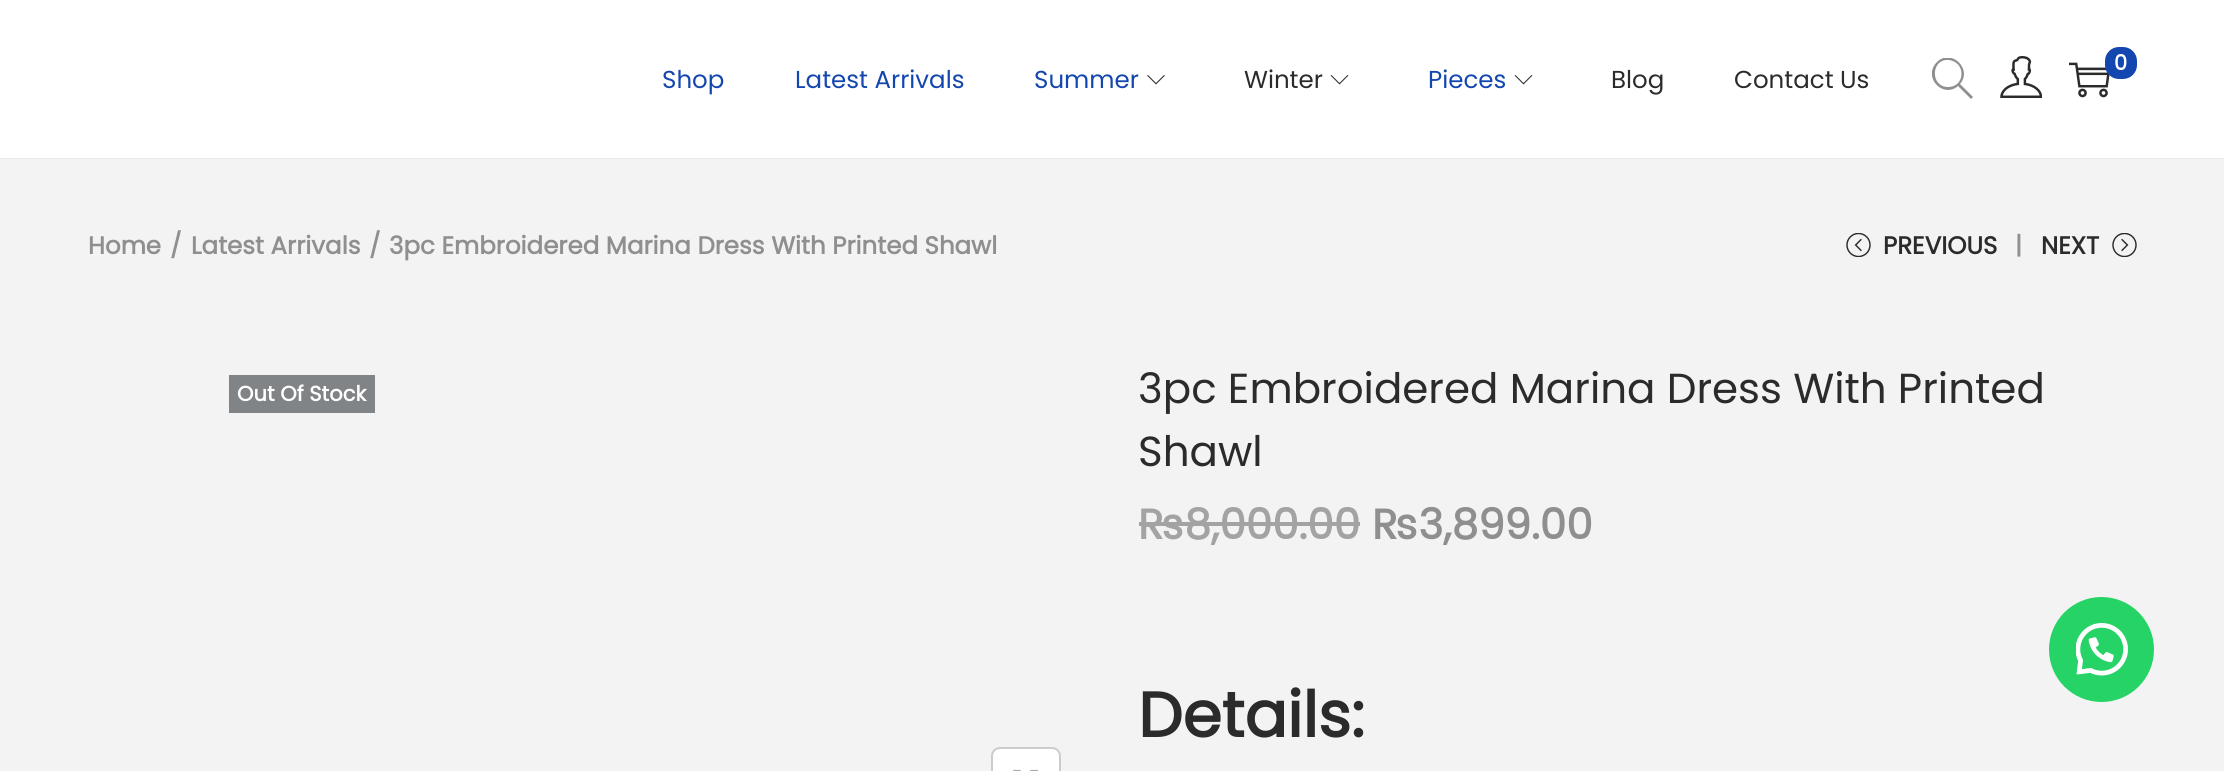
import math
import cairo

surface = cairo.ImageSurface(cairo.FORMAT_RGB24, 2224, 771)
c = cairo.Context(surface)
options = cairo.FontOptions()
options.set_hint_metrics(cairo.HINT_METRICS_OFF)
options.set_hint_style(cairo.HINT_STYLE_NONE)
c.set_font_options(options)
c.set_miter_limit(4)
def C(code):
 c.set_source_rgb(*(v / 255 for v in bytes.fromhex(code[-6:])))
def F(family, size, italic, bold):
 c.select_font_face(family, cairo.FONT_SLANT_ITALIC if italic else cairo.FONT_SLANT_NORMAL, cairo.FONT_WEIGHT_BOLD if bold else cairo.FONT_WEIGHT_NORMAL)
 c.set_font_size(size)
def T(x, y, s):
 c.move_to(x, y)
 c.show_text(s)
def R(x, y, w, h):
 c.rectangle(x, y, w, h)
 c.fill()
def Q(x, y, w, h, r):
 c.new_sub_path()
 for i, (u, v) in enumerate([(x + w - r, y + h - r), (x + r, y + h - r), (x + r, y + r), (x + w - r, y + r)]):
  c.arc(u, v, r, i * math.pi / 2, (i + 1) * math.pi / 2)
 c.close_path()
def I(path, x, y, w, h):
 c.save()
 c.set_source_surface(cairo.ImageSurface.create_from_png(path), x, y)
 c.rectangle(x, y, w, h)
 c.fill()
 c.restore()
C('ffffff')
c.paint()
C('eaeaea')
R(0,158,2224,1)
c.save()
c.rectangle(1932,58,42,42)
c.clip()
C('8f8f8f')
c.new_path()
c.move_to(1973,97)
c.line_to(1960,84)
c.curve_to(1973,69,1951,48,1937,62)
c.curve_to(1922,77,1943,99,1958,86)
c.line_to(1971,99)
c.close_path()
c.move_to(1948,87)
c.curve_to(1930,87,1931,59,1948,60)
c.curve_to(1966,61,1966,87,1948,87)
c.close_path()
c.fill()
c.restore()
I('1.png',2000,56,42,42)
I('2.png',2069,62,41,36)
C('1346af')
Q(2105,47,32,32,14)
c.fill()
F('Poppins',21,0,1)
C('ffffff')
T(2114,70,'0')
F('Poppins',24.5,0,0)
C('1346af')
T(662,88,'Shop')
T(795,88,'Latest Arrivals')
T(1034,88,'Summer')
C('2b2b2b')
c.new_path()
c.move_to(1165,75.5)
c.line_to(1156,84.5)
c.line_to(1147,75.5)
c.line_to(1148,75)
c.line_to(1156,83)
c.line_to(1164,75)
c.close_path()
c.fill()
T(1244,88,'Winter')
c.new_path()
c.move_to(1348.5,75.5)
c.line_to(1339.5,84.5)
c.line_to(1330.5,75.5)
c.line_to(1331.5,75)
c.line_to(1339.5,83)
c.line_to(1347.5,75)
c.close_path()
c.fill()
C('1346af')
T(1428,88,'Pieces')
C('2b2b2b')
c.new_path()
c.move_to(1532.5,75.5)
c.line_to(1523.5,84.5)
c.line_to(1514.5,75.5)
c.line_to(1515.5,75)
c.line_to(1523.5,83)
c.line_to(1531.5,75)
c.close_path()
c.fill()
T(1611,88,'Blog')
T(1734,88,'Contact Us')
C('f3f3f3')
R(0,159,2224,612)
F('Poppins',24.5,0,1)
C('8f8f8f')
T(88,254,'Home')
T(170,254,'/')
T(191,254,'Latest Arrivals')
T(369,254,'/')
T(389,254,'3pc Embroidered Marina Dress With Printed Shawl')
I('3.png',1846,233,25,24)
C('2b2b2b')
T(1883,254,'PREVIOUS')
C('8f8f8f')
T(2015,254,'|')
C('2b2b2b')
T(2041,254,'NEXT')
I('4.png',2112,233,25,24)
C('818486')
R(229,375,146,38)
F('Poppins',21,0,1)
C('ffffff')
T(237,401,'Out Of Stock')
Q(992,748,68,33,8)
c.fill_preserve()
C('cccccc')
c.stroke()
I('5.png',1013,769,25,2)
F('Poppins',42,0,0)
C('2b2b2b')
T(1138,403,'3pc Embroidered Marina Dress With Printed')
T(1138,466,'Shawl')
F('Poppins',42,0,1)
C('a3a3a3')
T(1138,539,'₨8,000.00')
R(1139,522,221,4)
C('8f8f8f')
T(1372,539,'₨3,899.00')
F('Poppins',63,0,1)
C('2b2b2b')
T(1138,737,'Details:')
C('25d366')
c.new_path()
c.arc(2101.5,649.5,52.5,0,2 * math.pi)
c.fill()
I('6.png',2076,623,52,53)
surface.write_to_png('o.png')
